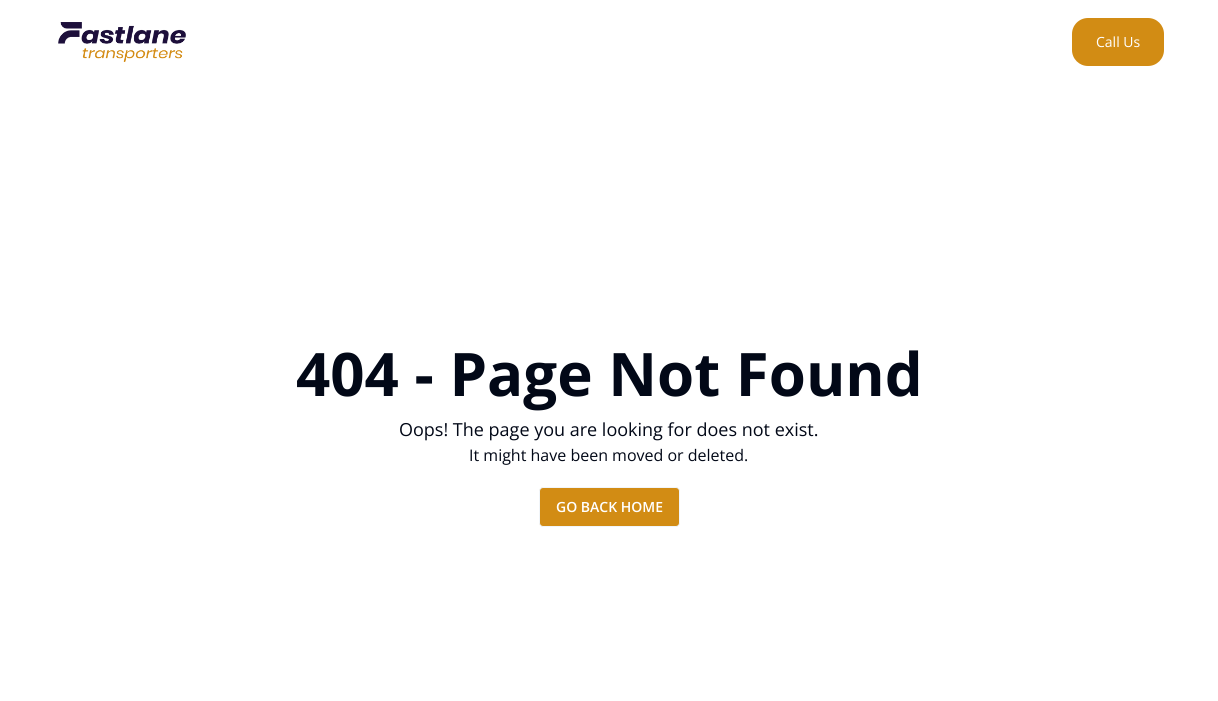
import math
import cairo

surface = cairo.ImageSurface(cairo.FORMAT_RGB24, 1218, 701)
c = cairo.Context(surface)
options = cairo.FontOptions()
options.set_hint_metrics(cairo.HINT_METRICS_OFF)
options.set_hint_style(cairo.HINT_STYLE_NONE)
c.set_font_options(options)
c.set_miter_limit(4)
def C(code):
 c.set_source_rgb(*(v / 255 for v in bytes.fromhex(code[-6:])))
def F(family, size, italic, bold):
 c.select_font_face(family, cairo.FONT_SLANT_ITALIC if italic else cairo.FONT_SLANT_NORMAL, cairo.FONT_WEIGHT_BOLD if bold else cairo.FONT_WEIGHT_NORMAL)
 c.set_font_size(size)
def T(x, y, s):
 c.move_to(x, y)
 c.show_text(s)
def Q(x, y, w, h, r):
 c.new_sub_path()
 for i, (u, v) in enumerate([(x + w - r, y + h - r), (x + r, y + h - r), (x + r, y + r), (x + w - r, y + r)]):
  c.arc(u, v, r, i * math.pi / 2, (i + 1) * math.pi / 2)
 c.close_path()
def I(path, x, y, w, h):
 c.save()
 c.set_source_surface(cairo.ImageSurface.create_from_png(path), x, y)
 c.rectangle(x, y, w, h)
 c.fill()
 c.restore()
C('ffffff')
c.paint()
I('1.png',58,22,128,40)
C('d28c14')
Q(1072,18,92,48,16)
c.fill()
F('Open Sans',14,0,0)
C('ffffff')
T(1096,47,'Call Us')
F('Open Sans',60,0,1)
C('020817')
T(296,396,'404 - Page Not Found')
F('Open Sans',18,0,0)
T(399,436,'Oops! The page you are looking for does not exist.')
F('Open Sans',16,0,0)
T(469,461,'It might have been moved or deleted.')
C('d28c14')
Q(539.5,487.5,140,39,3.5)
c.fill_preserve()
C('f1f5f9')
c.set_line_width(1)
c.stroke()
F('Open Sans SemiBold',14,0,0)
C('ffffff')
T(556,512,'GO BACK HOME')
surface.write_to_png('o.png')
